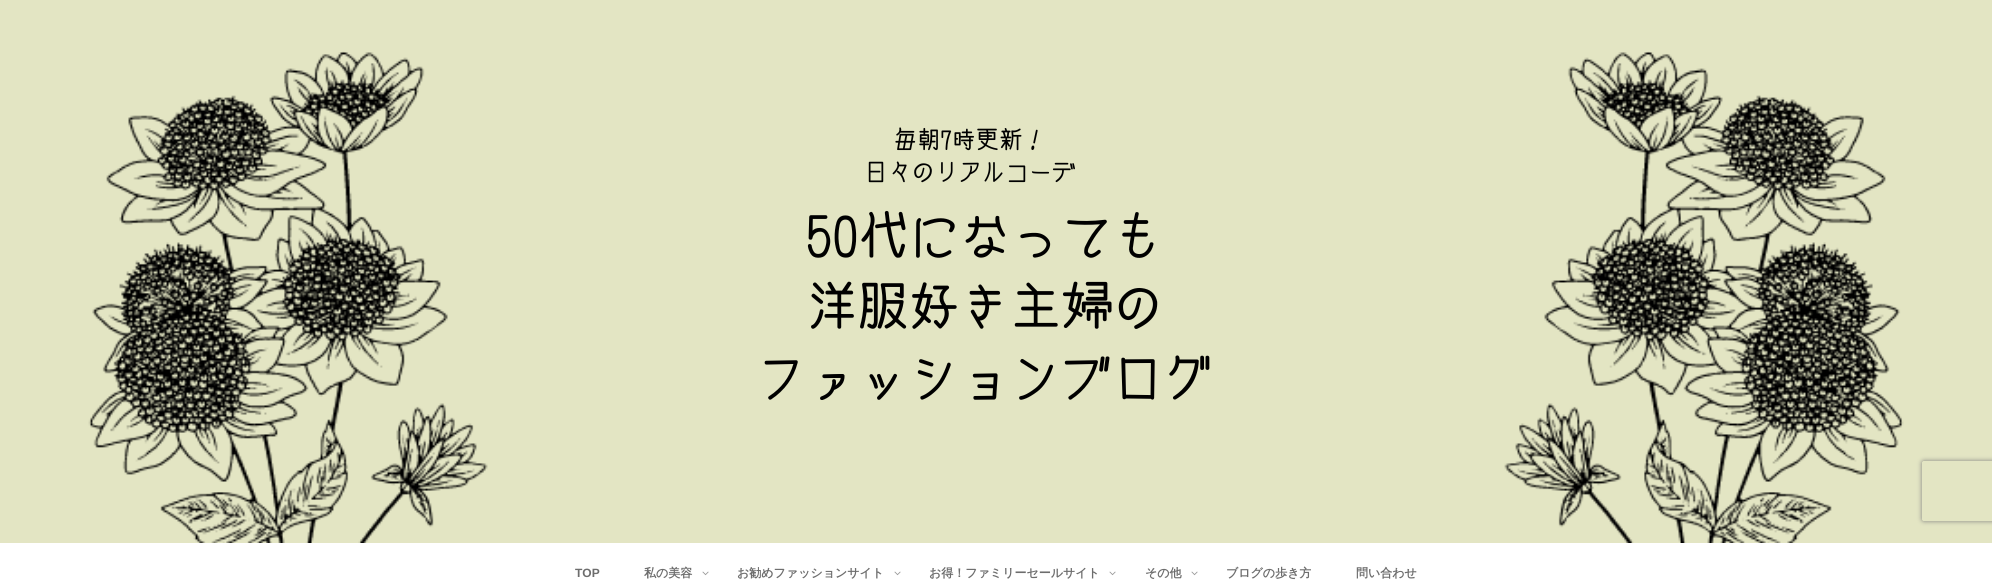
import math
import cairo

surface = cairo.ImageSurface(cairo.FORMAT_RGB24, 1992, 581)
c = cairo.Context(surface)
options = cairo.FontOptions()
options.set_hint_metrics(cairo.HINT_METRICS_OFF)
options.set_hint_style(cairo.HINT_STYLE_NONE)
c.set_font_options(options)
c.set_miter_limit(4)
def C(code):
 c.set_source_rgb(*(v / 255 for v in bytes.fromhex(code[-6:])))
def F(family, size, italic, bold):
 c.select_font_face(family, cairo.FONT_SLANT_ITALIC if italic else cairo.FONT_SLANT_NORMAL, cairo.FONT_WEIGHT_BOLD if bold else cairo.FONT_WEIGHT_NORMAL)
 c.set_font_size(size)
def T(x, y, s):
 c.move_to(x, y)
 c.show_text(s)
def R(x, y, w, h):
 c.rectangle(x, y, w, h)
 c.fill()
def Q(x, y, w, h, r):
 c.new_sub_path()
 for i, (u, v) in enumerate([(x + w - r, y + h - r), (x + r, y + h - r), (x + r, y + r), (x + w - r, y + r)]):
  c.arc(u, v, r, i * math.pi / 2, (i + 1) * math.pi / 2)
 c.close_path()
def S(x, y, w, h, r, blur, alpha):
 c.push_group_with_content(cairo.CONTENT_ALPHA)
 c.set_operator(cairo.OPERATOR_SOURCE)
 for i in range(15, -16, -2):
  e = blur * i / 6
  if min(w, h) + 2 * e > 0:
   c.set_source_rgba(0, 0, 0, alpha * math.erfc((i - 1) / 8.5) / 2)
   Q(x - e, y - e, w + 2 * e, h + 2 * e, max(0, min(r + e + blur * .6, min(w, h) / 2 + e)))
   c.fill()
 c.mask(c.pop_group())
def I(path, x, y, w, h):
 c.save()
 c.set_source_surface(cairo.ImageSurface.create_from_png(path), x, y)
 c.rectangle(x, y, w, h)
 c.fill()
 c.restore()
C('e3e5c3')
c.paint()
c.save()
c.set_fill_rule(cairo.FILL_RULE_EVEN_ODD)
c.new_path()
c.move_to(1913,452)
c.line_to(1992,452)
c.line_to(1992,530)
c.line_to(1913,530)
c.close_path()
c.move_to(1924,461)
c.line_to(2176,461)
c.curve_to(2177,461,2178,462,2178,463)
c.line_to(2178,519)
c.curve_to(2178,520,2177,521,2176,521)
c.line_to(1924,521)
c.curve_to(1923,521,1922,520,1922,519)
c.line_to(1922,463)
c.curve_to(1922,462,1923,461,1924,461)
c.close_path()
c.clip()
C('808080')
S(1922,461,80,60,2,2.5,1)
c.restore()
I('1.png',88,51,1816,492)
I('2.png',764,127,446,273)
C('ffffff')
R(0,543,1992,38)
F('Liberation Sans',12,0,1)
C('6d6d6d')
T(575,577,'TOP')
F('WenQuanYi Zen Hei',12,0,1)
T(644,577,'私の美容')
I('3.png',702,571,7,5)
T(737,577,'お勧めファッションサイト')
I('3.png',894,571,7,5)
T(929,577,'お得！ファミリーセールサイト')
I('3.png',1109,571,7,5)
T(1145,577,'その他')
I('3.png',1191,571,7,5)
T(1226,577,'ブログの歩き方')
T(1356,577,'問い合わせ')
surface.write_to_png('o.png')
